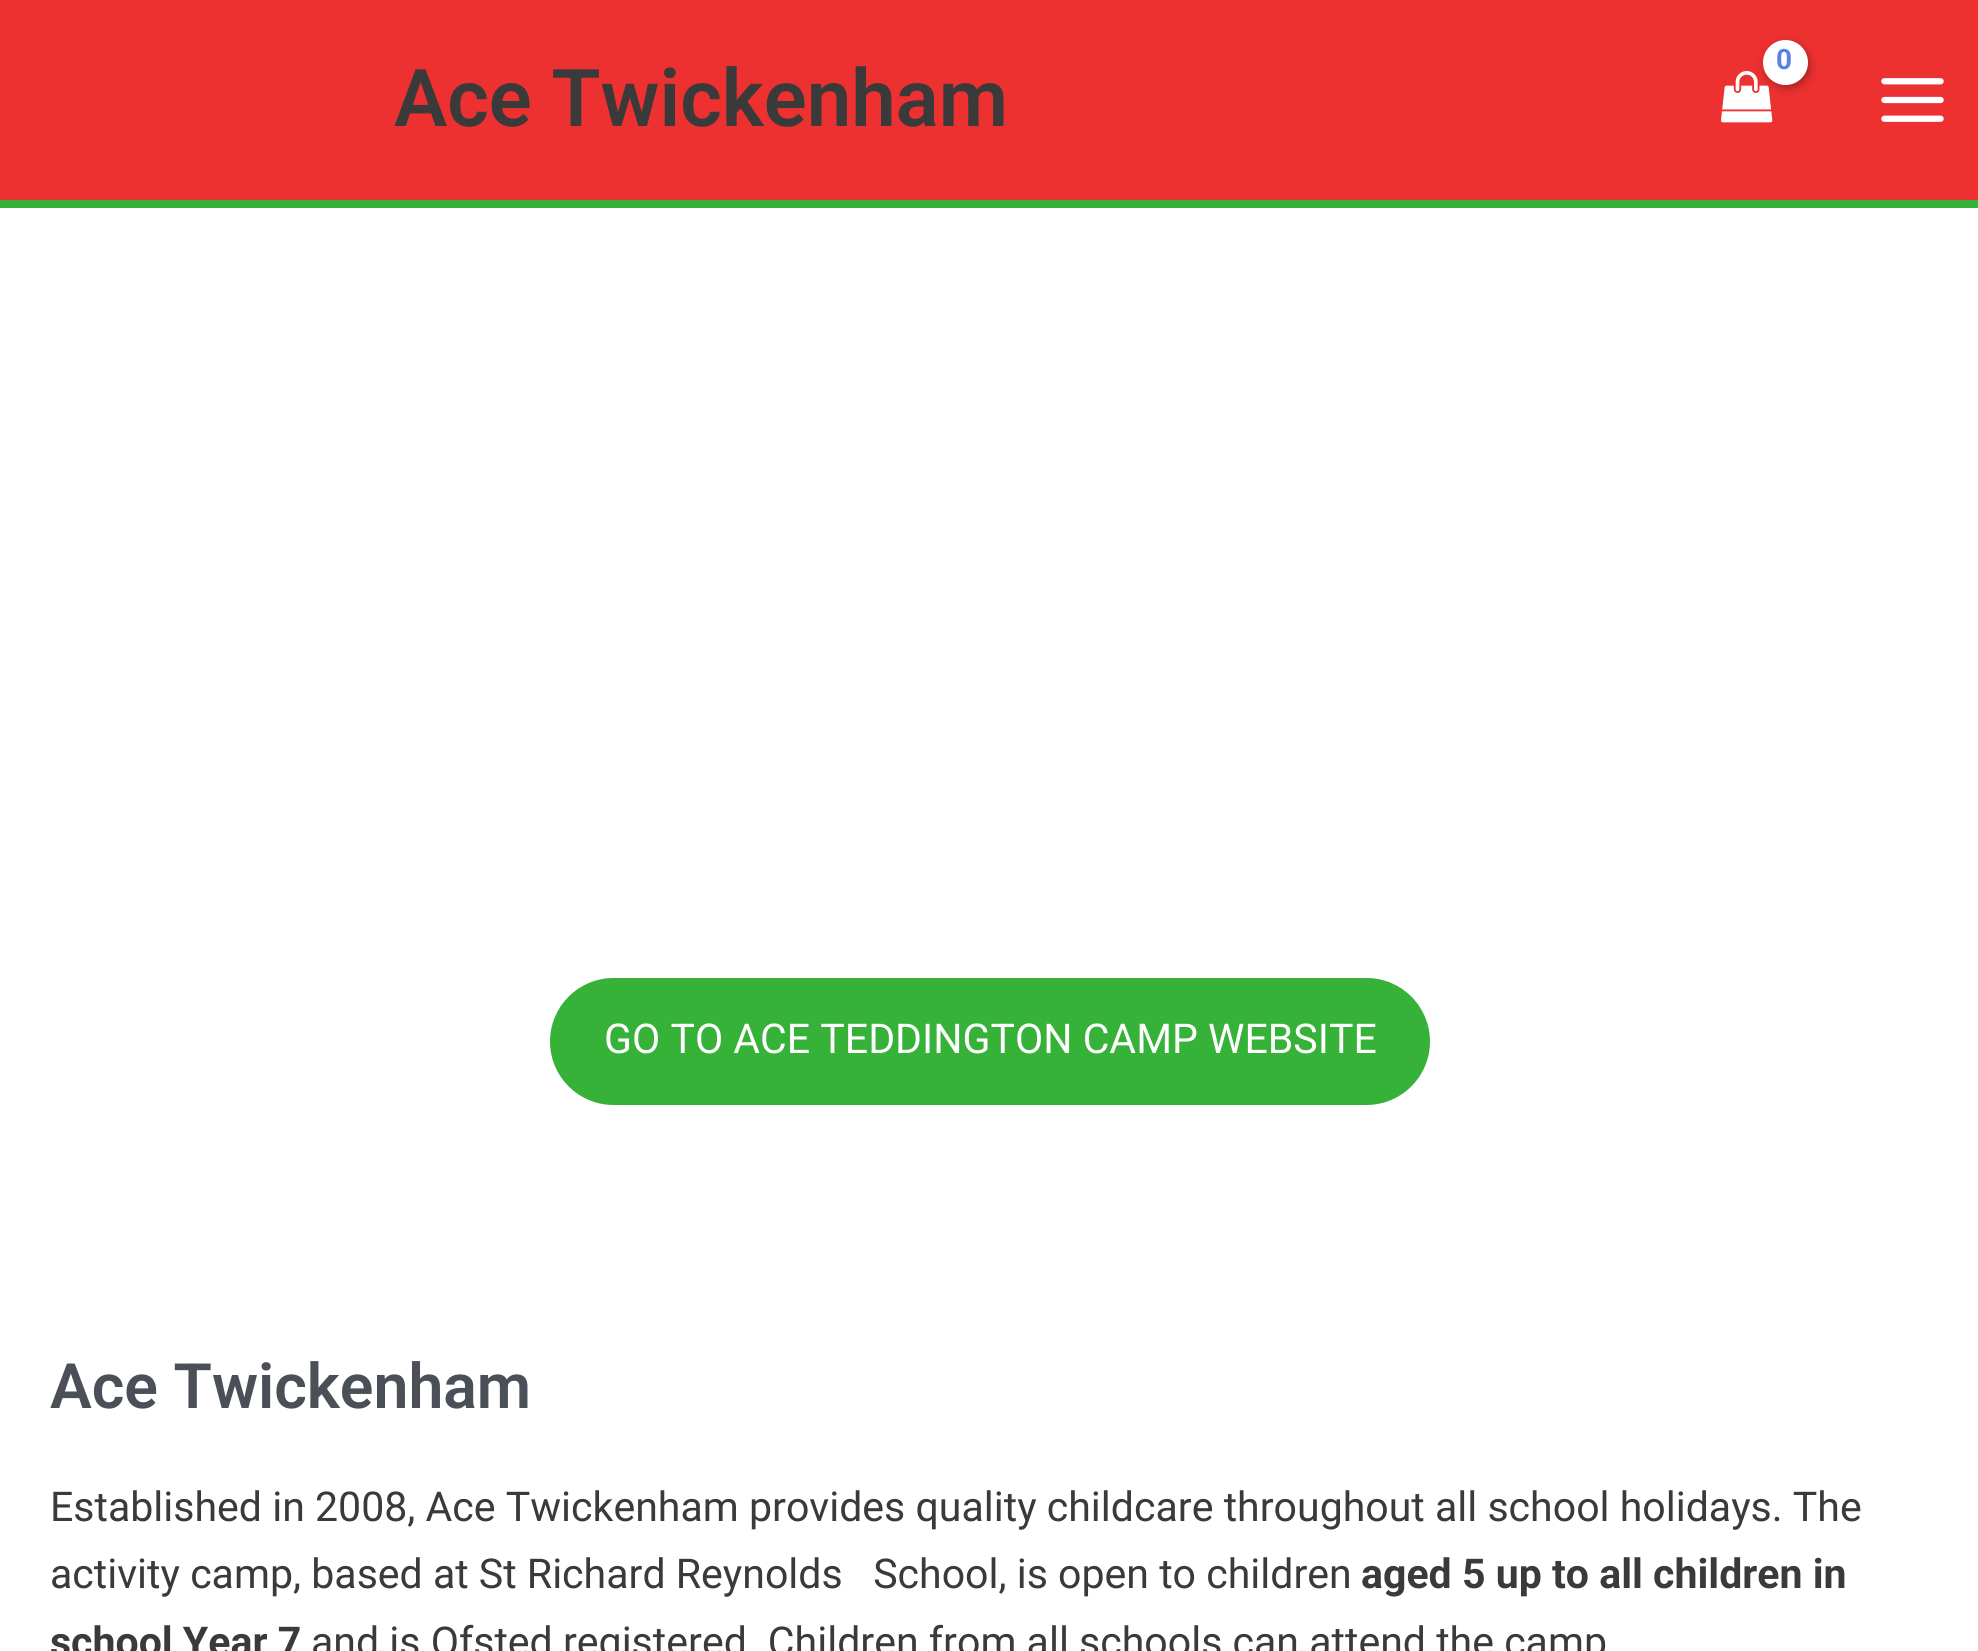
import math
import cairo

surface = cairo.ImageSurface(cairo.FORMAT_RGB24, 1978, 1651)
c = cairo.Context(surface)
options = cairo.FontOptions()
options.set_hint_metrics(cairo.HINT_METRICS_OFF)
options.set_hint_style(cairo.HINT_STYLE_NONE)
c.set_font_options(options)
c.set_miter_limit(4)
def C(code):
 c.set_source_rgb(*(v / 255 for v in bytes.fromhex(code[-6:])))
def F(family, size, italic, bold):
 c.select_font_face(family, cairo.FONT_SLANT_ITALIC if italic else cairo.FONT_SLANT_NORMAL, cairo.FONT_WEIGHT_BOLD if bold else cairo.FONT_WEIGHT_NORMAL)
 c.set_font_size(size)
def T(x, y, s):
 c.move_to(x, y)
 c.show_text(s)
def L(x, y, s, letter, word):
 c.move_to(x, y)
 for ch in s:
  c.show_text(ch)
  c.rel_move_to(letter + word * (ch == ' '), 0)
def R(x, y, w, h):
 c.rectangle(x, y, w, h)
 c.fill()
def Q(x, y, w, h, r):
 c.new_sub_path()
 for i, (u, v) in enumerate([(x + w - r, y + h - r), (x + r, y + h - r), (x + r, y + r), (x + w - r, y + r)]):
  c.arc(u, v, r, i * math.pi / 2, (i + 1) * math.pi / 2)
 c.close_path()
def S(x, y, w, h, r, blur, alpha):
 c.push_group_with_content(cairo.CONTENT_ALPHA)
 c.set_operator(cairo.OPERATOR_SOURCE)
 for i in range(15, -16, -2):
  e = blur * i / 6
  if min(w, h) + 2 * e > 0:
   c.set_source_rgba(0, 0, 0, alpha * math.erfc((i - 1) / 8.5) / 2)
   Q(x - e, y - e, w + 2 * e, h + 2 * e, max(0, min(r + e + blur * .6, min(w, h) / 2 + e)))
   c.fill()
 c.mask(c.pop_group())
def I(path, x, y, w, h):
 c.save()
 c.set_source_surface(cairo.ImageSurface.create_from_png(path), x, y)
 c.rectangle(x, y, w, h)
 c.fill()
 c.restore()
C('ffffff')
c.paint()
C('ed3030')
R(0,0,1978,200)
C('37b239')
R(0,200,1978,8)
I('1.png',1721,71,52,52)
C('000000')
S(1765,43,45,45,22.5,4,.3)
C('ffffff')
c.arc(1785.5,62.5,22.5,0,2 * math.pi)
c.fill()
F('Roboto',28,0,1)
C('5a80eb')
L(1776,69,'0',-1,0)
I('2.png',1881,78,63,44)
F('Roboto SemiBold',79.75,0,0)
C('3a3a3a')
T(394,126,'Ace Twickenham')
C('37b239')
Q(552.5,980.5,875,122,61)
c.fill_preserve()
c.set_line_width(5)
c.stroke()
F('Roboto',41.05,0,0)
C('ffffff')
T(604,1053,'GO TO ACE TEDDINGTON CAMP WEBSITE')
F('Roboto SemiBold',62.5,0,0)
C('4b4f58')
T(50,1408,'Ace Twickenham')
F('Roboto',41.05,0,0)
C('3a3a3a')
T(50,1521,'Established in 2008, Ace Twickenham provides quality childcare throughout all school holidays. The')
T(50,1588,'activity camp, based at St Richard Reynolds   School, is open to children')
F('Roboto',41.05,0,1)
T(1361,1588,'aged 5 up to all children in')
T(50,1656,'school Year 7')
F('Roboto',41.05,0,0)
T(311,1656,'and is Ofsted registered. Children from all schools can attend the camp')
surface.write_to_png('o.png')
